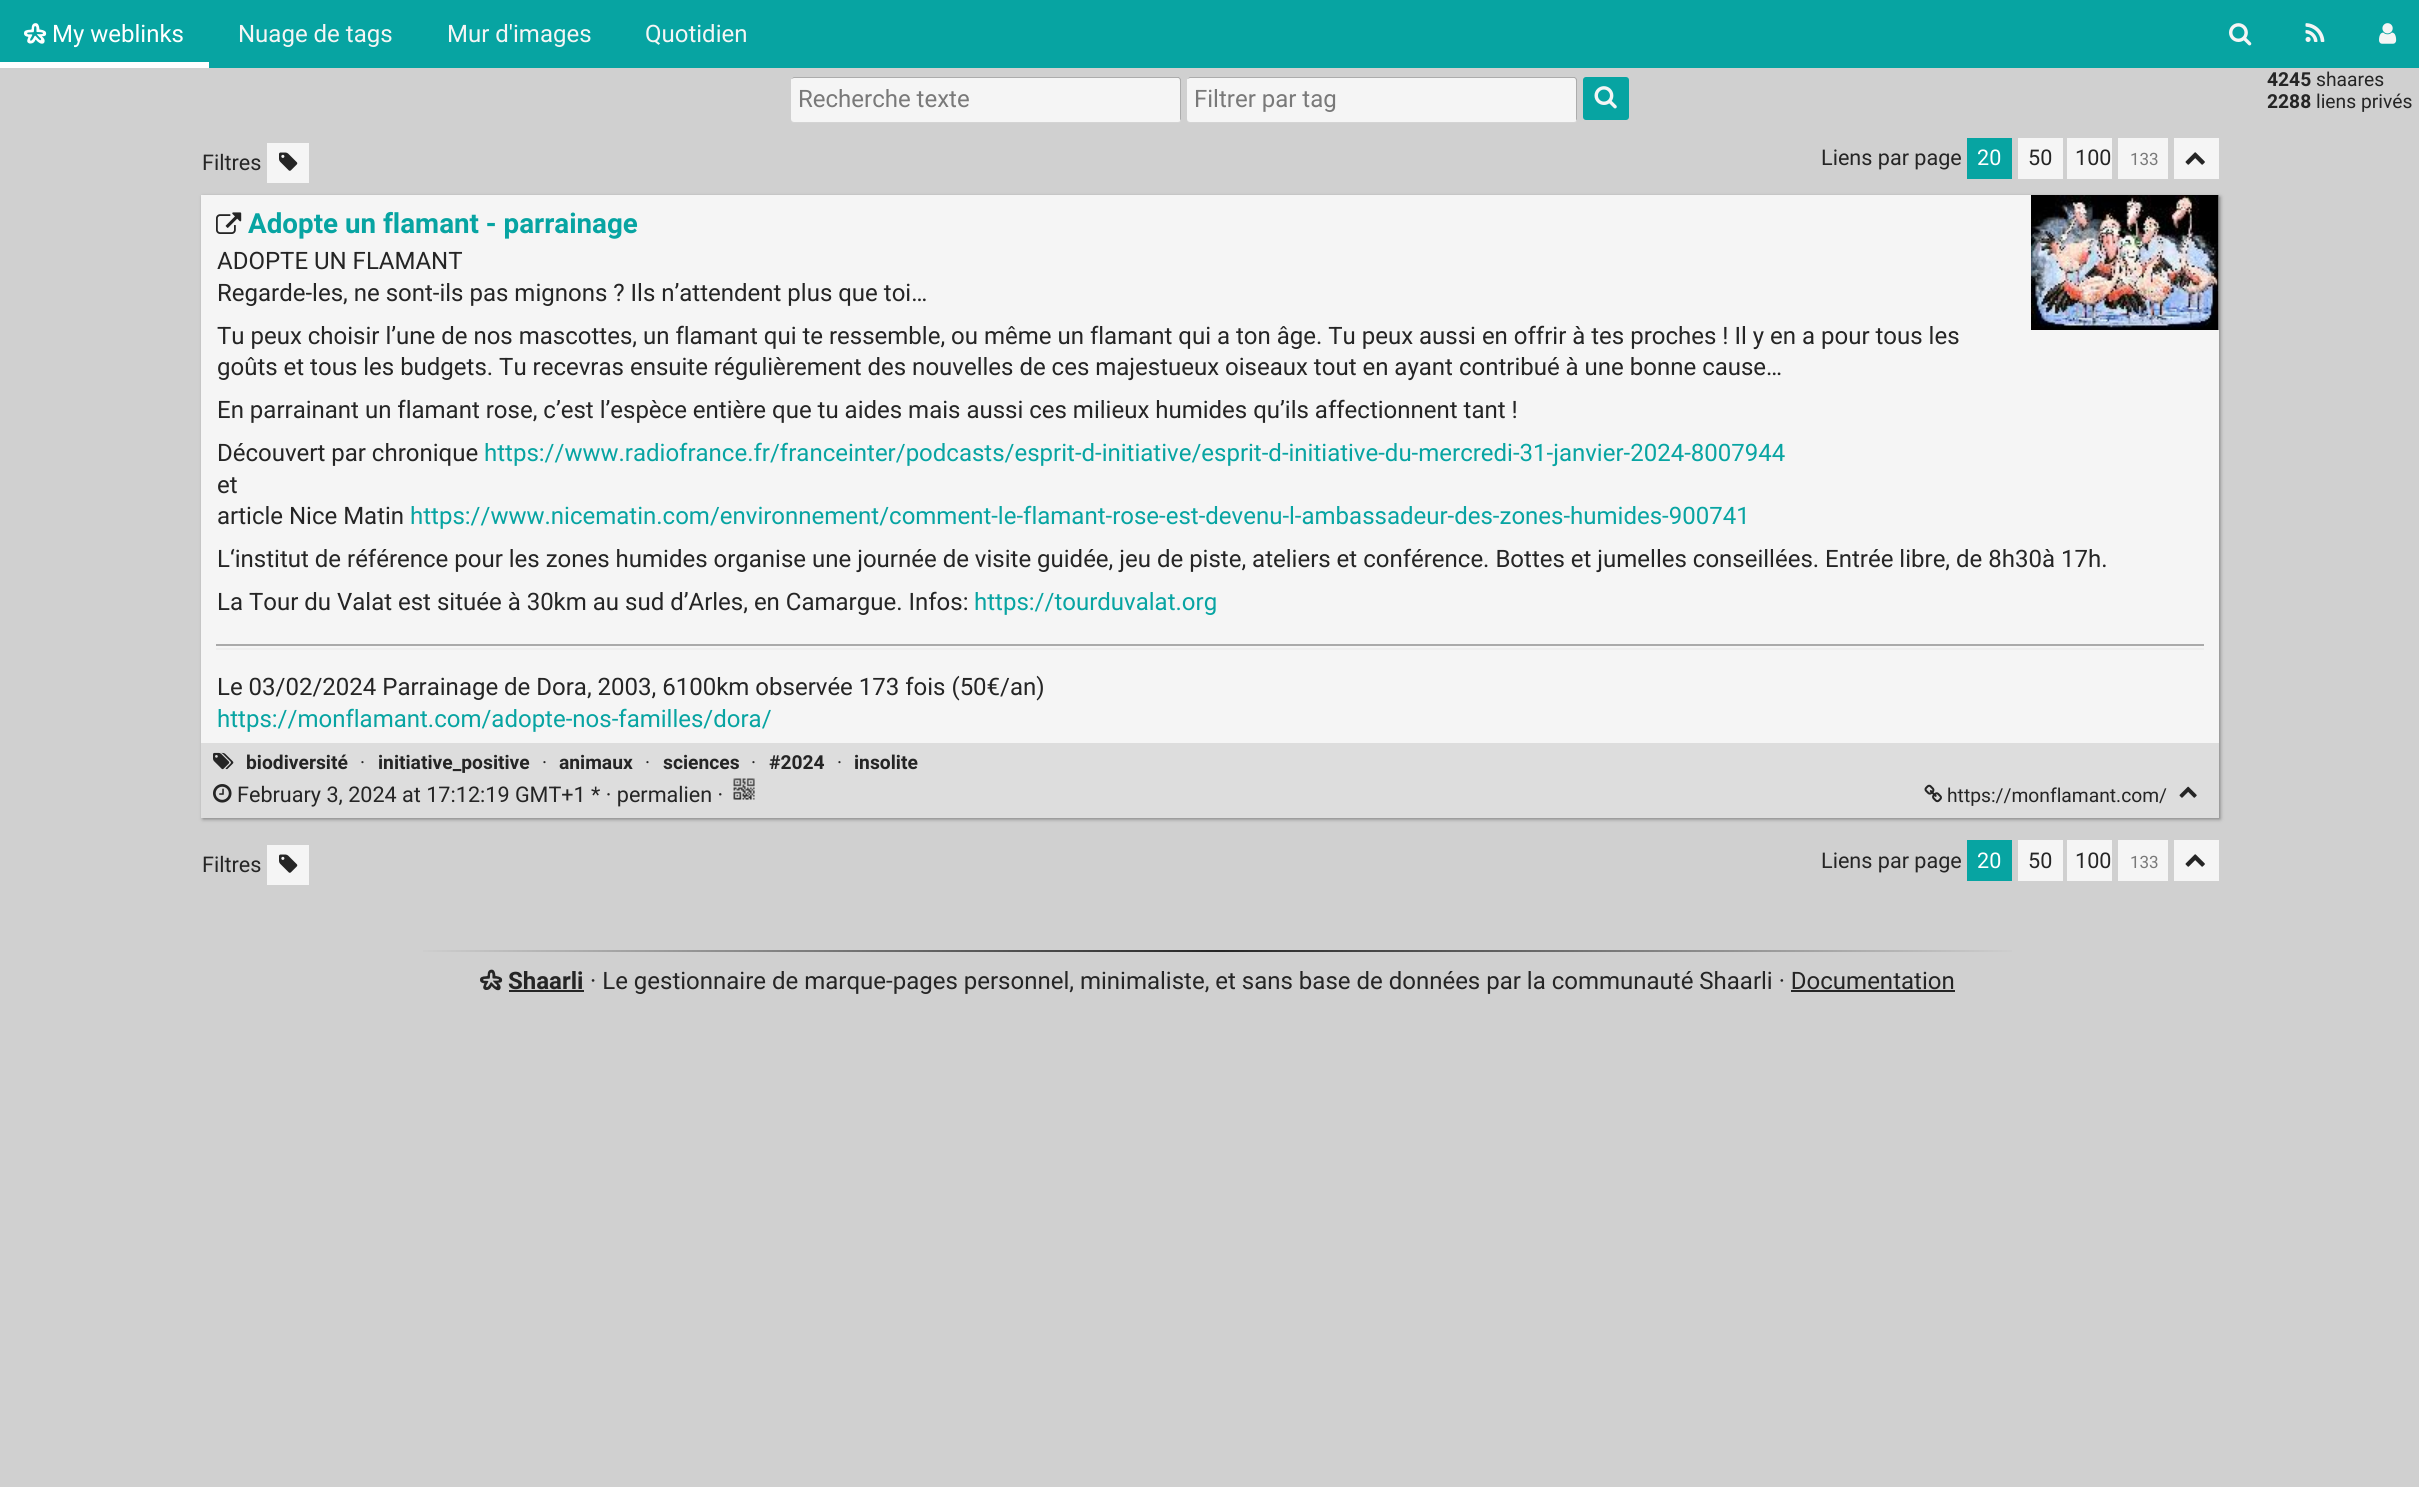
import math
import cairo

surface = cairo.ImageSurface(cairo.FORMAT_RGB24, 2419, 1487)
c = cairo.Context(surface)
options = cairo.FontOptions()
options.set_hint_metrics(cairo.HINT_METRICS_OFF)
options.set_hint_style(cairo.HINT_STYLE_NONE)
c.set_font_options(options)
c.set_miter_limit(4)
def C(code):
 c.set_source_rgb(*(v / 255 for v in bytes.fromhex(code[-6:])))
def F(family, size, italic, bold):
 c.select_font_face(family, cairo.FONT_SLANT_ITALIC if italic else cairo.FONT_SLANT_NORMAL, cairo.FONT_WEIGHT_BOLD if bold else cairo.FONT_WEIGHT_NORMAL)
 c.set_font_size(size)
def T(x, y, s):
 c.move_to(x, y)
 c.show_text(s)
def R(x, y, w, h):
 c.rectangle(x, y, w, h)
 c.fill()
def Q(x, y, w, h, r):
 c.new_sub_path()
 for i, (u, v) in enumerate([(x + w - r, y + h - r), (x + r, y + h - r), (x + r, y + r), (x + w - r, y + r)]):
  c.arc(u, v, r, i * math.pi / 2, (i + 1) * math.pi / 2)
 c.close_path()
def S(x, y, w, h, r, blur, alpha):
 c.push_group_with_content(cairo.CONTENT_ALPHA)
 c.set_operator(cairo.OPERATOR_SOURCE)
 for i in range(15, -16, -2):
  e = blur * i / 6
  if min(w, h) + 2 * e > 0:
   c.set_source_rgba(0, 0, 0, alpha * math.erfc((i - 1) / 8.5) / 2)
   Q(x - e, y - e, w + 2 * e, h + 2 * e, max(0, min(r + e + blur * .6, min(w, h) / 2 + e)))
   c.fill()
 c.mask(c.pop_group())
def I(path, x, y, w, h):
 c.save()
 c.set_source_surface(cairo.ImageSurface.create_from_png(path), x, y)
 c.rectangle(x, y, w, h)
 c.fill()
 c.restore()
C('d0d0d0')
c.paint()
C('07a4a2')
R(0,0,2419,68)
I('1.png',24,23,23,21)
F('Roboto',24,0,0)
C('ffffff')
T(52,42,'My weblinks')
R(0,62,209,6)
C('f5f5f5')
T(238,42,'Nuage de tags')
T(447,42,'Mur d\'images')
T(645,42,'Quotidien')
I('2.png',2229,23,23,23)
I('3.png',2305,23,20,19)
I('4.png',2379,23,18,21)
C('d4d4d4')
c.new_path()
c.move_to(791,120)
c.curve_to(791,122,792,123,794,123)
c.line_to(1178,123)
c.curve_to(1180,123,1181,122,1181,120)
c.line_to(1181,81)
c.line_to(1180,79)
c.line_to(1180,118)
c.curve_to(1180,120,1179,122,1178,122)
c.line_to(794,122)
c.curve_to(792,122,792,121,791,120)
c.close_path()
c.fill()
C('f5f5f5')
Q(791,77,390,45,3)
c.fill()
c.set_source_rgba(0,0,0,0.3)
c.new_path()
c.move_to(794,78)
c.line_to(1178,78)
c.curve_to(1179,78,1180,79,1180,81)
c.line_to(1180,121)
c.line_to(1181,119)
c.line_to(1181,79)
c.line_to(1179,77)
c.line_to(794,77)
c.curve_to(793,77,792,78,791,79)
c.close_path()
c.fill()
C('797979')
T(798,107,'Recherche texte')
C('d4d4d4')
c.new_path()
c.move_to(1187,120)
c.curve_to(1187,122,1188,123,1190,123)
c.line_to(1574,123)
c.curve_to(1576,123,1577,122,1577,120)
c.line_to(1577,81)
c.line_to(1576,79)
c.line_to(1576,118)
c.curve_to(1576,120,1575,122,1574,122)
c.line_to(1190,122)
c.curve_to(1188,122,1188,121,1187,120)
c.close_path()
c.fill()
C('f5f5f5')
Q(1187,77,390,45,3)
c.fill()
c.set_source_rgba(0,0,0,0.3)
c.new_path()
c.move_to(1190,78)
c.line_to(1574,78)
c.curve_to(1575,78,1576,79,1576,81)
c.line_to(1576,121)
c.line_to(1577,119)
c.line_to(1577,79)
c.line_to(1575,77)
c.line_to(1190,77)
c.curve_to(1189,77,1188,78,1187,79)
c.close_path()
c.fill()
C('797979')
T(1194,107,'Filtrer par tag')
C('07a4a2')
Q(1583,77,46,43,3)
c.fill()
I('5.png',1594,86,23,23)
F('Roboto',19.25,0,1)
C('252525')
T(2267,86,'4245')
F('Roboto',19.25,0,0)
T(2316,86,'shaares')
F('Roboto',19.25,0,1)
T(2267,108,'2288')
F('Roboto',19.25,0,0)
T(2316,108,'liens privés')
F('Roboto',21.6,0,0)
T(202,170,'Filtres')
C('f5f5f5')
R(267,143,42,40)
I('6.png',279,152,19,19)
C('252525')
T(1821,165,'Liens par page')
C('07a4a2')
R(1967,138,45,41)
C('ffffff')
T(1977,165,'20')
C('f5f5f5')
R(2018,138,45,41)
C('252525')
T(2028,165,'50')
C('f5f5f5')
R(2067,138,45,41)
C('252525')
T(2075,165,'100')
C('f5f5f5')
R(2118,138,50,41)
F('Roboto',17,0,0)
C('797979')
T(2130,165,'133')
C('f5f5f5')
R(2174,138,45,41)
I('7.png',2185,152,20,13)
C('797979')
S(203,197,2017,622,0,2,1)
C('f5f5f5')
R(201,195,2018,548)
I('8.png',216,212,26,22)
F('Roboto',27.75,0,1)
C('07a4a2')
T(248,233,'Adopte un flamant - parrainage')
I('9.png',2031,195,188,135)
F('Roboto',24,0,0)
C('252525')
T(217,269,'ADOPTE UN FLAMANT')
T(217,301,'Regarde-les, ne sont-ils pas mignons ? Ils n’attendent plus que toi…')
T(217,344,'Tu peux choisir l’une de nos mascottes, un flamant qui te ressemble, ou même un flamant qui a ton âge. Tu peux aussi en offrir à tes proches ! Il y en a pour tous les')
T(217,375,'goûts et tous les budgets. Tu recevras ensuite régulièrement des nouvelles de ces majestueux oiseaux tout en ayant contribué à une bonne cause…')
T(217,418,'En parrainant un flamant rose, c’est l’espèce entière que tu aides mais aussi ces milieux humides qu’ils affectionnent tant !')
T(217,461,'Découvert par chronique')
C('07a4a2')
T(484,461,'https://www.radiofrance.fr/franceinter/podcasts/esprit-d-initiative/esprit-d-initiative-du-mercredi-31-janvier-2024-8007944')
C('252525')
T(217,493,'et')
T(217,524,'article Nice Matin')
C('07a4a2')
T(410,524,'https://www.nicematin.com/environnement/comment-le-flamant-rose-est-devenu-l-ambassadeur-des-zones-humides-900741')
C('252525')
T(217,567,'L‘institut de référence pour les zones humides organise une journée de visite guidée, jeu de piste, ateliers et conférence. Bottes et jumelles conseillées. Entrée libre, de 8h30à 17h.')
T(217,610,'La Tour du Valat est située à 30km au sud d’Arles, en Camargue. Infos:')
C('07a4a2')
T(974,610,'https://tourduvalat.org')
C('aaaaaa')
R(216,644,1988,2)
C('eeeeee')
R(216,648,1988,2)
C('252525')
T(217,695,'Le 03/02/2024 Parrainage de Dora, 2003, 6100km observée 173 fois (50€/an)')
C('07a4a2')
T(217,727,'https://monflamant.com/adopte-nos-familles/dora/')
C('dddddd')
R(201,743,2018,75)
I('10.png',213,752,21,18)
F('Roboto',19.25,0,1)
C('252525')
T(246,769,'biodiversité')
F('Roboto',19.25,0,0)
T(360,769,'·')
F('Roboto',19.25,0,1)
T(378,769,'initiative_positive')
F('Roboto',19.25,0,0)
T(542,769,'·')
F('Roboto',19.25,0,1)
T(559,769,'animaux')
F('Roboto',19.25,0,0)
T(645,769,'·')
F('Roboto',19.25,0,1)
T(663,769,'sciences')
F('Roboto',19.25,0,0)
T(751,769,'·')
F('Roboto',19.25,0,1)
T(769,769,'#2024')
F('Roboto',19.25,0,0)
T(837,769,'·')
F('Roboto',19.25,0,1)
T(854,769,'insolite')
I('11.png',213,784,19,19)
F('Roboto',21.6,0,0)
T(237,802,'February 3, 2024 at 17:12:19 GMT+1 * · permalien ·')
I('12.png',733,778,22,22)
I('13.png',1924,784,18,19)
F('Roboto',19.25,0,0)
T(1947,802,'https://monflamant.com/')
I('14.png',2179,786,18,12)
F('Roboto',21.6,0,0)
T(202,872,'Filtres')
C('f5f5f5')
R(267,845,42,40)
I('6.png',279,854,19,19)
C('252525')
T(1821,868,'Liens par page')
C('07a4a2')
R(1967,840,45,41)
C('ffffff')
T(1977,868,'20')
C('f5f5f5')
R(2018,840,45,41)
C('252525')
T(2028,868,'50')
C('f5f5f5')
R(2067,840,45,41)
C('252525')
T(2075,868,'100')
C('f5f5f5')
R(2118,840,50,41)
F('Roboto',17,0,0)
C('797979')
T(2130,868,'133')
C('f5f5f5')
R(2174,840,45,41)
I('7.png',2185,854,20,13)
gradient = cairo.LinearGradient(411,950,2024,950)
gradient.add_color_stop_rgba(0,0.816,0.816,0.816,1)
gradient.add_color_stop_rgba(.5,0.145,0.145,0.145,1)
gradient.add_color_stop_rgba(1,0.816,0.816,0.816,1)
c.set_source(gradient)
R(423,950,1589,2)
I('15.png',480,969,23,22)
F('Roboto',24,0,1)
C('252525')
T(508,989,'Shaarli')
R(509,990,75,2)
F('Roboto',24,0,0)
T(590,989,'· Le gestionnaire de marque-pages personnel, minimaliste, et sans base de données par la communauté Shaarli · Documentation')
R(1791,990,164,2)
surface.write_to_png('o.png')
